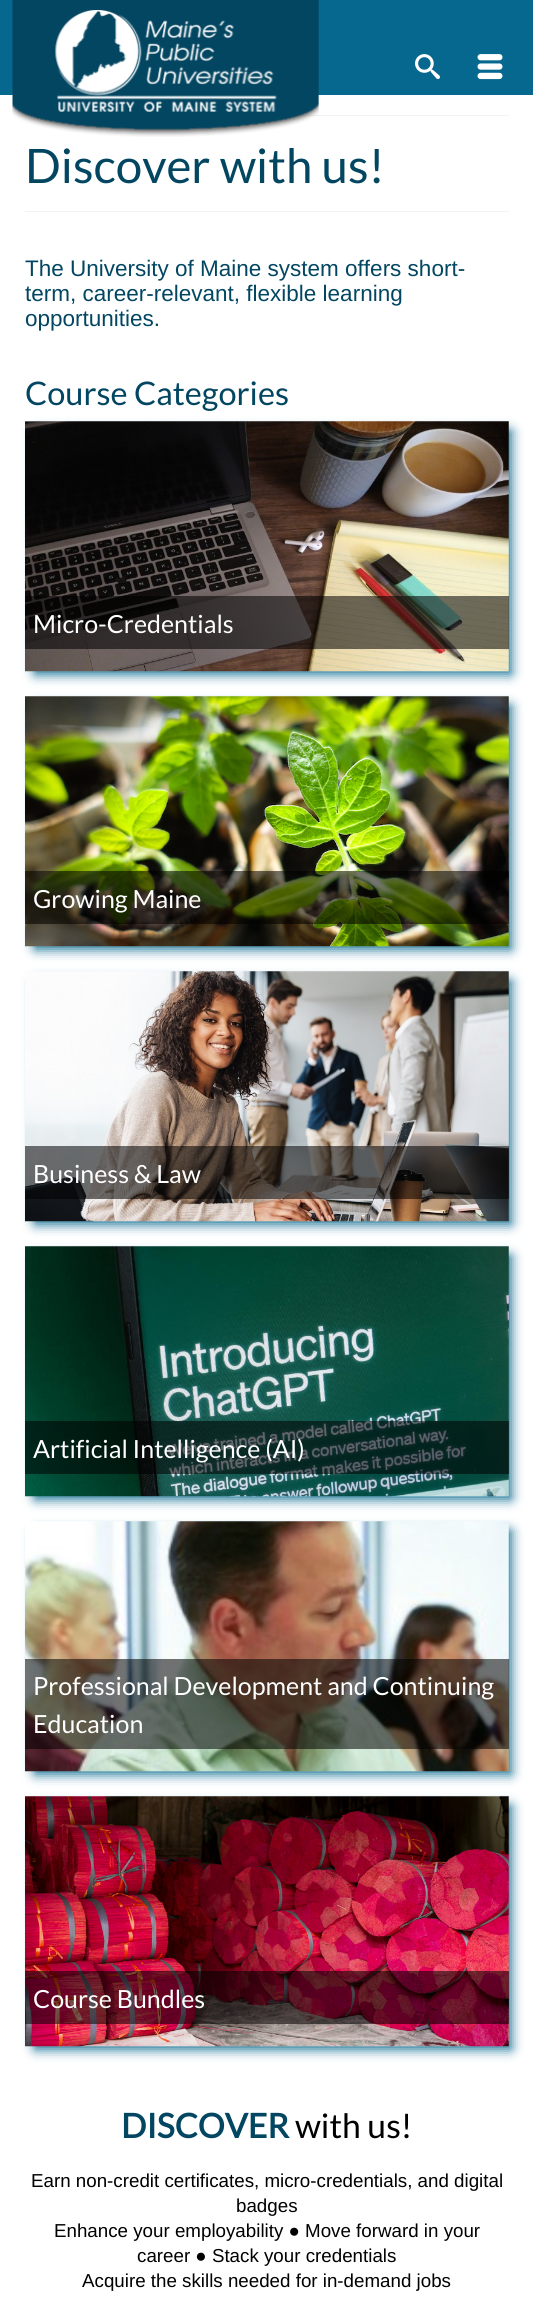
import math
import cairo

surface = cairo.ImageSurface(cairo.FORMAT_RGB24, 533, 2308)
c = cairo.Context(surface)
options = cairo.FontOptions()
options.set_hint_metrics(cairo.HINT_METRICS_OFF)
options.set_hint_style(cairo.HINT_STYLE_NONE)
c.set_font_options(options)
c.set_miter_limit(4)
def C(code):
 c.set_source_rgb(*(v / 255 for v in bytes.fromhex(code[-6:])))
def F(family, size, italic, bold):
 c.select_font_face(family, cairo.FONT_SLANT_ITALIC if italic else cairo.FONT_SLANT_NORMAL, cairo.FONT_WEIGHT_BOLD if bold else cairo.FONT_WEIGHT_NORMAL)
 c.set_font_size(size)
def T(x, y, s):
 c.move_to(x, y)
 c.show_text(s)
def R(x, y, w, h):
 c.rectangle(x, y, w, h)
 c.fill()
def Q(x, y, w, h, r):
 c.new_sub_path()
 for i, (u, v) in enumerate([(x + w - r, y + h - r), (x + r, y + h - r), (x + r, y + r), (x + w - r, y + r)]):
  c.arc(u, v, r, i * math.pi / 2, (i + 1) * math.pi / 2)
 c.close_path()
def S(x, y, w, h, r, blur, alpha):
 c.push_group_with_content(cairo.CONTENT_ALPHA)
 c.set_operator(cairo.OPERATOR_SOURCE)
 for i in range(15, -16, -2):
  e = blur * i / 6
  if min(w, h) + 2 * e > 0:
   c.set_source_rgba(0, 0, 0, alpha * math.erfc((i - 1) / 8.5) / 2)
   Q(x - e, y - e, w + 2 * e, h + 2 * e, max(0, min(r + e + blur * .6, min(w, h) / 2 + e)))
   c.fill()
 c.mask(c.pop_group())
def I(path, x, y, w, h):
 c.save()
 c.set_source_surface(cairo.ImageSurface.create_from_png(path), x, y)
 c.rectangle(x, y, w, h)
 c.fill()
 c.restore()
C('ffffff')
c.paint()
C('07688f')
R(0,0,533,95)
C('f2f2f2')
R(25,115,484,1)
I('1.png',12,0,307,137)
I('2.png',415,54,25,25)
I('3.png',477,54,26,26)
R(25,211,484,1)
F('Lato',47.5,0,0)
C('034661')
T(25,183,'Discover with us!')
F('Liberation Sans',22.5,0,0)
T(25,276,'The University of Maine system offers short-')
T(25,301,'term, career-relevant, flexible learning')
T(25,326,'opportunities.')
F('Lato',32.5,0,0)
T(25,405,'Course Categories')
C('07688f')
S(35,431,476,243,0,6,1)
I('4.png',25,421,484,251)
c.set_source_rgba(0,0,0,0.55)
R(25,596,484,53)
F('Lato',25,0,0)
C('ffffff')
T(33,633,'Micro-Credentials')
C('07688f')
S(35,706,476,243,0,6,1)
I('5.png',25,696,484,251)
c.set_source_rgba(0,0,0,0.55)
R(25,871,484,53)
C('ffffff')
T(33,908,'Growing Maine')
C('07688f')
S(35,981,476,243,0,6,1)
I('6.png',25,971,484,251)
c.set_source_rgba(0,0,0,0.55)
R(25,1146,484,53)
C('ffffff')
T(33,1183,'Business & Law')
C('07688f')
S(35,1256,476,243,0,6,1)
I('7.png',25,1246,484,251)
c.set_source_rgba(0,0,0,0.55)
R(25,1421,484,53)
C('ffffff')
T(33,1458,'Artificial Intelligence (AI)')
C('07688f')
S(35,1531,476,243,0,6,1)
I('8.png',25,1521,484,251)
c.set_source_rgba(0,0,0,0.55)
R(25,1659,484,90)
C('ffffff')
T(33,1695,'Professional Development and Continuing')
T(33,1733,'Education')
C('07688f')
S(35,1806,476,243,0,6,1)
I('9.png',25,1796,484,251)
c.set_source_rgba(0,0,0,0.55)
R(25,1971,484,53)
C('ffffff')
T(33,2008,'Course Bundles')
F('Lato',33.75,0,1)
C('034661')
T(121,2138,'DISCOVER')
F('Lato',33.75,0,0)
C('000000')
T(295,2138,'with us!')
F('Liberation Sans',18.75,0,0)
T(31,2187,'Earn non-credit certificates, micro-credentials, and digital')
T(236,2212,'badges')
T(54,2237,'Enhance your employability ● Move forward in your')
T(137,2262,'career ● Stack your credentials')
T(82,2287,'Acquire the skills needed for in-demand jobs')
surface.write_to_png('o.png')
